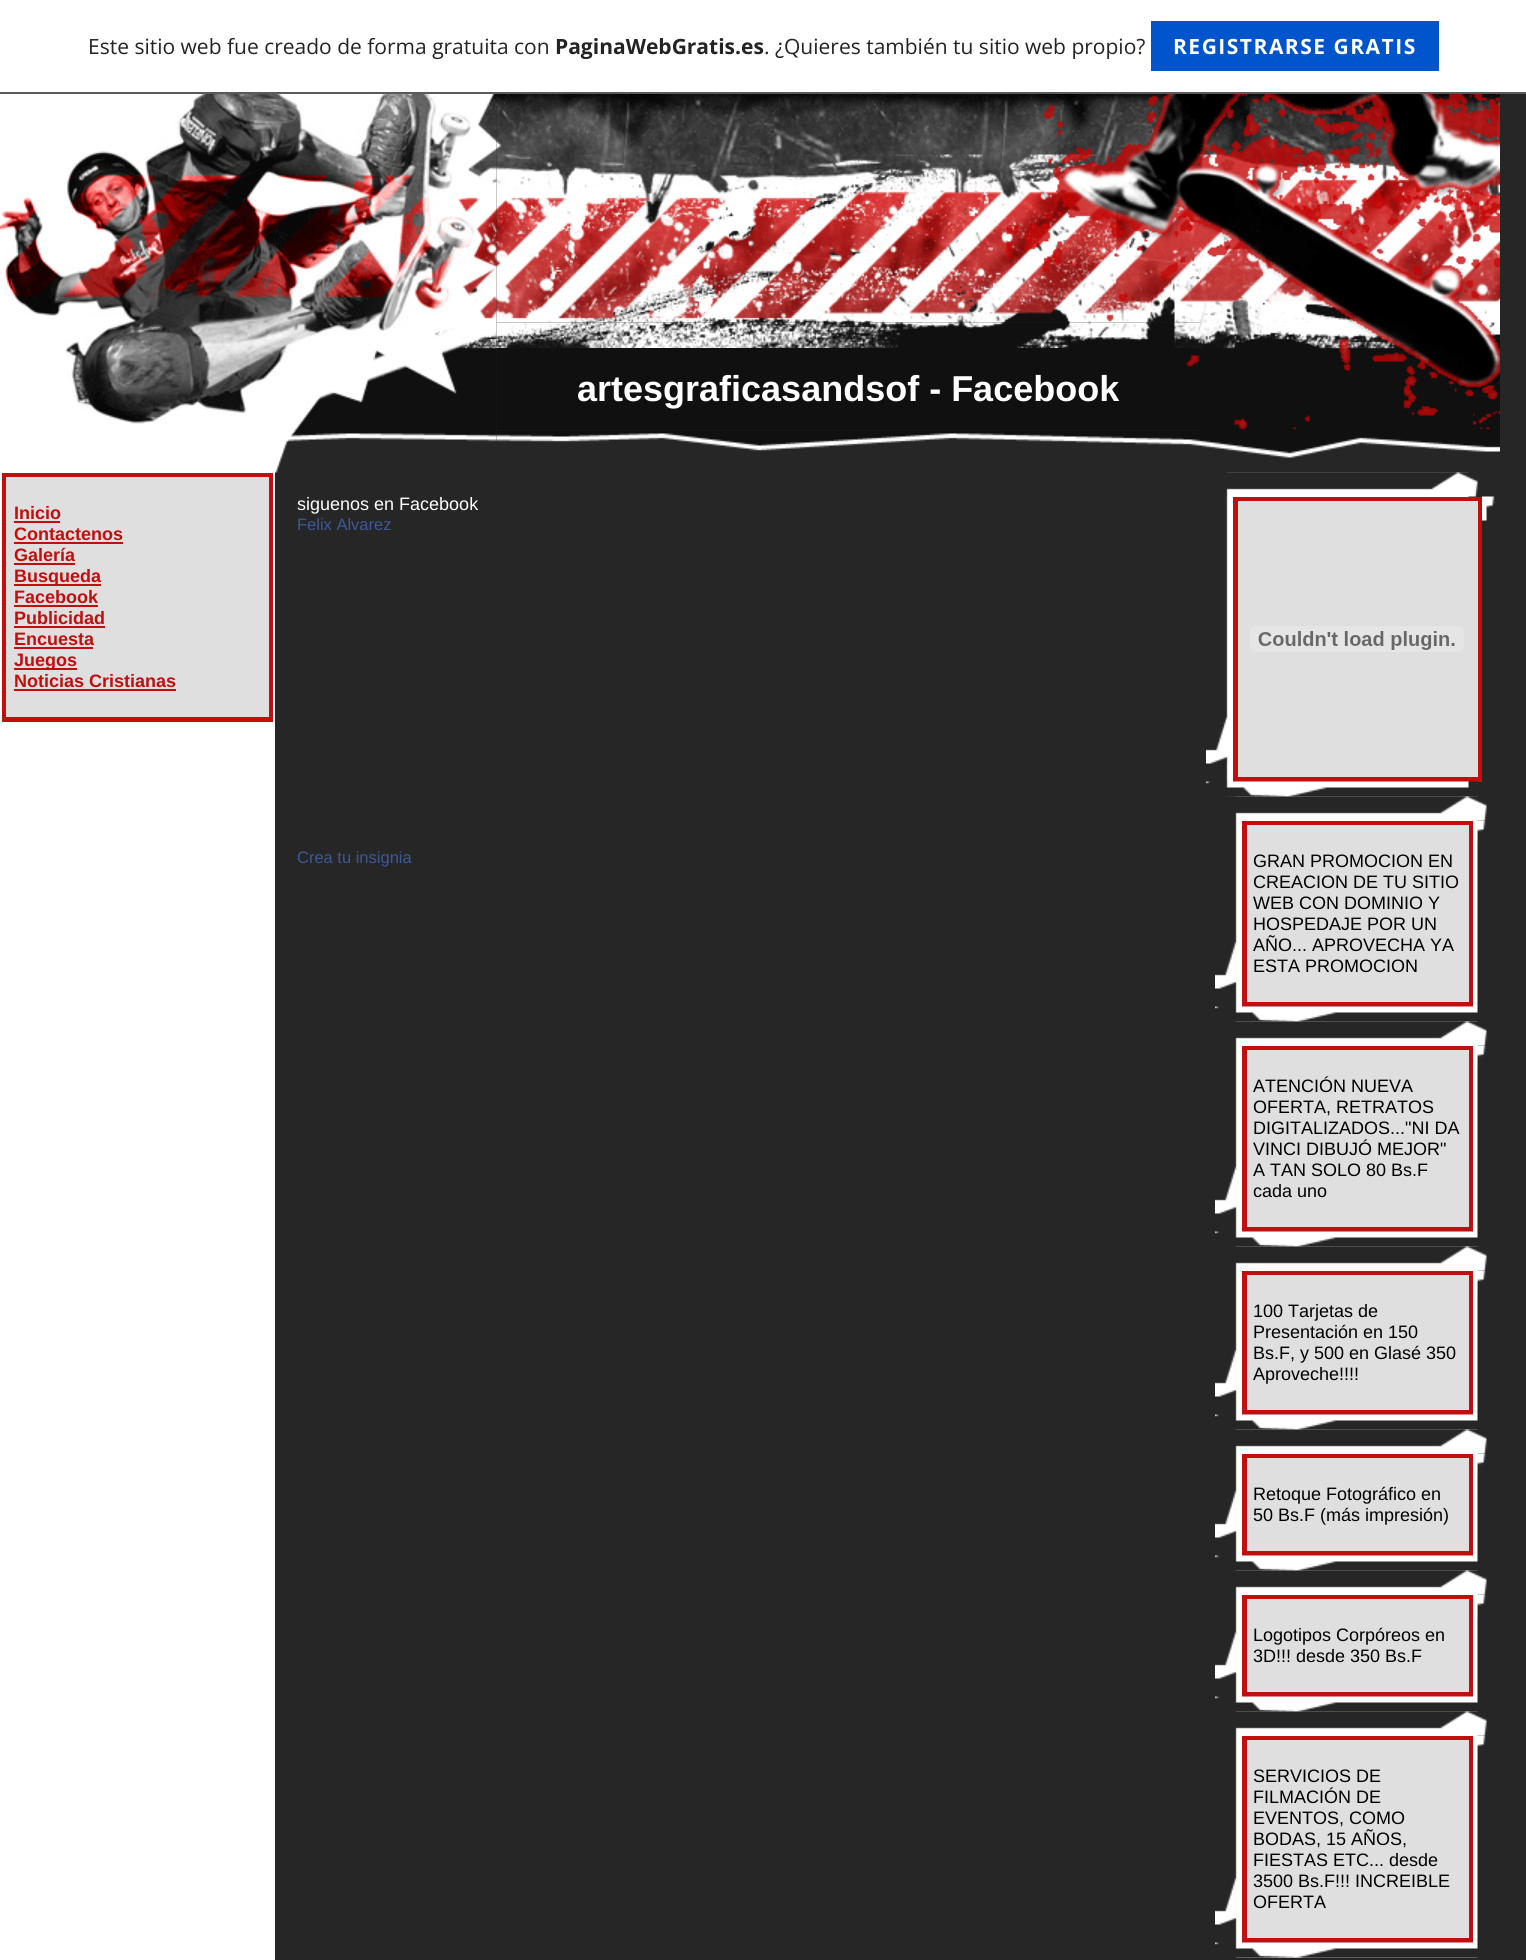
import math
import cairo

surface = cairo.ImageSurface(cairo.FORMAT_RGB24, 1526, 1960)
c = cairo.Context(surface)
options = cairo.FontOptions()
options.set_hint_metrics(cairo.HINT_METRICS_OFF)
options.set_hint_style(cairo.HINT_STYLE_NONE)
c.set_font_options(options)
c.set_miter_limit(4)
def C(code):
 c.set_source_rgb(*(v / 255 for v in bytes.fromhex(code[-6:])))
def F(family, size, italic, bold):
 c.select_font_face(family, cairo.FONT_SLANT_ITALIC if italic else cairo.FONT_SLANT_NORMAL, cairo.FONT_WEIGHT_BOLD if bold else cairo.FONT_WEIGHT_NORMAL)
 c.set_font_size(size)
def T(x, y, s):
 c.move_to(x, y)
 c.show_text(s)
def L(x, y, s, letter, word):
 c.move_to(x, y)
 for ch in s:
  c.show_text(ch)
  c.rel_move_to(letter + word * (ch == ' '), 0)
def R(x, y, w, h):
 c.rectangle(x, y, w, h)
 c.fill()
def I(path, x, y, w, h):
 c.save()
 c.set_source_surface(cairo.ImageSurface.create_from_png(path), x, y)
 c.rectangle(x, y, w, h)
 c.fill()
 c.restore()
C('262626')
c.paint()
C('ffffff')
R(0,472,275,1488)
R(0,0,1526,92)
C('5a5a5a')
R(0,92,1526,2)
F('Open Sans',21,0,0)
C('232323')
T(88,54,'Este sitio web fue creado de forma gratuita con')
F('Open Sans',21,0,1)
T(555,54,'PaginaWebGratis.es')
F('Open Sans',21,0,0)
T(764,54,'. ¿Quieres también tu sitio web propio?')
C('0055cc')
R(1151,21,288,50)
F('Open Sans',21,0,1)
C('ffffff')
L(1173,54,'REGISTRARSE GRATIS',1.5,0)
I('4.png',496,348,704,83)
I('1.png',0,94,497,379)
I('2.png',496,94,704,229)
I('3.png',496,322,704,26)
F('Liberation Sans',36,0,1)
T(577,401,'artesgraficasandsof - Facebook')
I('5.png',496,430,704,21)
I('7.png',1226,472,243,325)
I('6.png',1200,94,300,379)
c.rectangle(4.5,475.5,266,244)
C('bf0f0e')
c.set_line_width(5)
c.stroke()
C('dfdfdf')
R(6,477,263,240)
F('Liberation Sans',18,0,1)
C('bf0f0e')
T(14,519,'Inicio')
R(14,521,46,2)
T(14,540,'Contactenos')
R(14,542,109,2)
T(14,561,'Galería')
R(14,563,61,2)
R(14,584,87,2)
T(14,582,'Busqueda')
T(14,603,'Facebook')
R(14,605,84,2)
T(14,624,'Publicidad')
R(14,626,91,2)
T(14,645,'Encuesta')
R(14,647,79,2)
R(14,668,63,2)
T(14,666,'Juegos')
T(14,687,'Noticias Cristianas')
R(14,689,162,2)
F('Liberation Sans',18,0,0)
C('ffffff')
T(297,510,'siguenos en Facebook')
F('Liberation Sans',16.5,0,0)
C('3b5998')
T(297,530,'Felix Alvarez')
T(297,863,'Crea tu insignia')
I('8.png',1226,472,252,25)
I('9.png',1206,716,22,48)
c.rectangle(1235.5,499.5,244,280)
C('bf0f0e')
c.stroke()
C('dfdfdf')
R(1238,501,240,276)
I('10.png',1250,626,214,26)
I('11.png',1482,496,13,25)
I('13.png',1226,796,252,226)
I('12.png',1206,781,272,16)
I('14.png',1227,796,260,25)
I('15.png',1477,820,9,25)
I('16.png',1215,941,22,48)
c.rectangle(1244.5,823.5,226,181)
C('bf0f0e')
c.stroke()
C('dfdfdf')
R(1247,825,222,177)
F('Liberation Sans',18,0,0)
C('000000')
T(1253,867,'GRAN PROMOCION EN')
T(1253,888,'CREACION DE TU SITIO')
T(1253,909,'WEB CON DOMINIO Y')
T(1253,930,'HOSPEDAJE POR UN')
T(1253,951,'AÑO... APROVECHA YA')
T(1253,972,'ESTA PROMOCION')
I('18.png',1235,1021,243,226)
I('17.png',1215,1006,263,16)
I('19.png',1235,1021,252,25)
I('15.png',1477,1045,9,25)
I('16.png',1215,1166,22,48)
c.rectangle(1244.5,1048.5,226,181)
C('bf0f0e')
c.stroke()
C('dfdfdf')
R(1247,1050,222,177)
C('000000')
T(1253,1092,'ATENCIÓN NUEVA')
T(1253,1113,'OFERTA, RETRATOS')
T(1253,1134,'DIGITALIZADOS..."NI DA')
T(1253,1155,'VINCI DIBUJÓ MEJOR"')
T(1253,1176,'A TAN SOLO 80 Bs.F')
T(1253,1197,'cada uno')
I('20.png',1235,1246,243,184)
I('17.png',1215,1231,263,16)
I('19.png',1235,1246,252,25)
I('15.png',1477,1270,9,25)
I('16.png',1215,1349,22,48)
c.rectangle(1244.5,1273.5,226,139)
C('bf0f0e')
c.stroke()
C('dfdfdf')
R(1247,1275,222,135)
C('000000')
T(1253,1317,'100 Tarjetas de')
T(1253,1338,'Presentación en 150')
T(1253,1359,'Bs.F, y 500 en Glasé 350')
T(1253,1380,'Aproveche!!!!')
I('21.png',1235,1429,243,142)
I('17.png',1215,1414,263,16)
I('19.png',1235,1429,252,25)
I('15.png',1477,1453,9,25)
I('16.png',1215,1490,22,48)
c.rectangle(1244.5,1456.5,226,97)
C('bf0f0e')
c.stroke()
C('dfdfdf')
R(1247,1458,222,93)
C('000000')
T(1253,1500,'Retoque Fotográfico en')
T(1253,1521,'50 Bs.F (más impresión)')
I('21.png',1235,1570,243,142)
I('17.png',1215,1555,263,16)
I('19.png',1235,1570,252,25)
I('15.png',1477,1594,9,25)
I('16.png',1215,1631,22,48)
c.rectangle(1244.5,1597.5,226,97)
C('bf0f0e')
c.stroke()
C('dfdfdf')
R(1247,1599,222,93)
C('000000')
T(1253,1641,'Logotipos Corpóreos en')
T(1253,1662,'3D!!! desde 350 Bs.F')
I('22.png',1235,1711,243,247)
I('17.png',1215,1696,263,16)
I('19.png',1235,1711,252,25)
I('15.png',1477,1735,9,25)
I('16.png',1215,1877,22,48)
c.rectangle(1244.5,1738.5,226,202)
C('bf0f0e')
c.stroke()
C('dfdfdf')
R(1247,1740,222,198)
C('000000')
T(1253,1782,'SERVICIOS DE')
T(1253,1803,'FILMACIÓN DE')
T(1253,1824,'EVENTOS, COMO')
T(1253,1845,'BODAS, 15 AÑOS,')
T(1253,1866,'FIESTAS ETC... desde')
T(1253,1887,'3500 Bs.F!!! INCREIBLE')
T(1253,1908,'OFERTA')
I('23.png',1215,1942,263,16)
surface.write_to_png('o.png')
